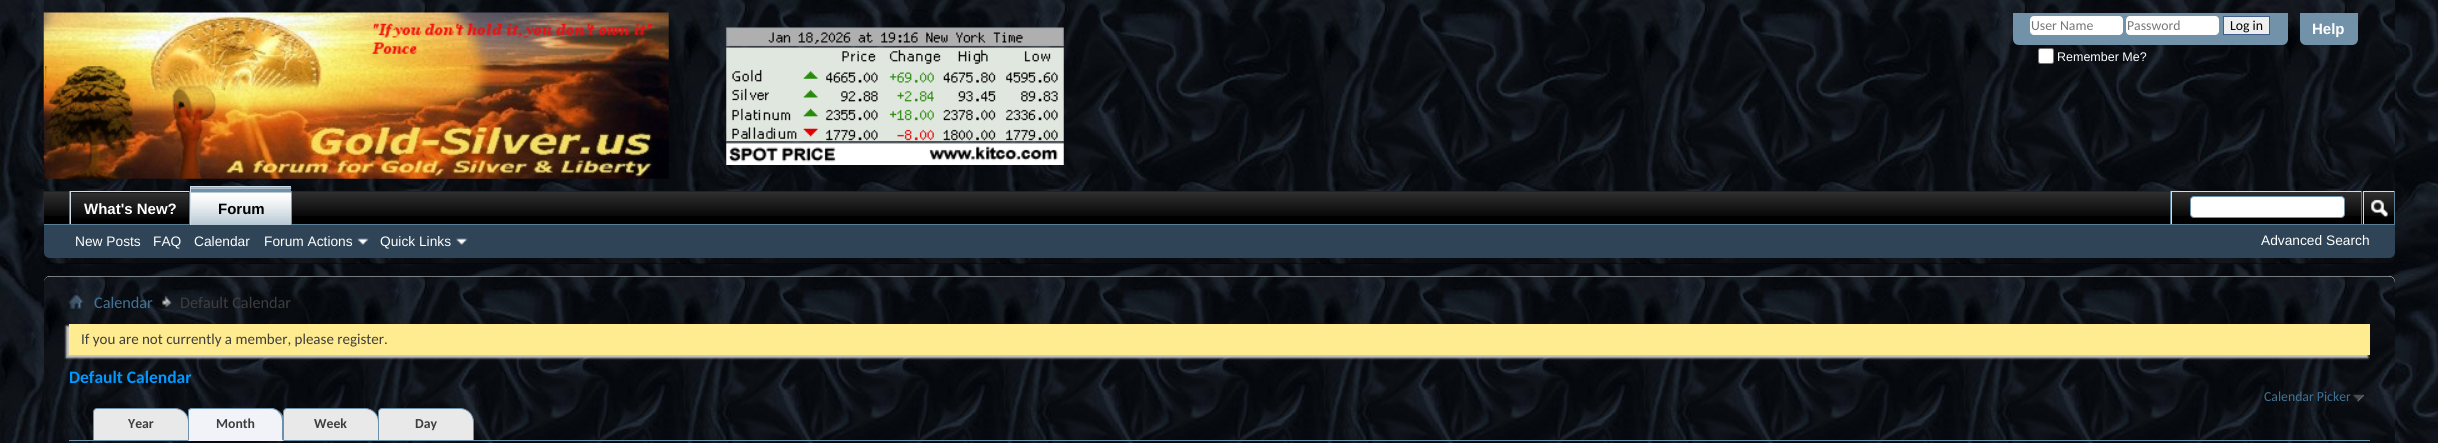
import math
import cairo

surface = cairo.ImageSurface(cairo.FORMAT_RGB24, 2438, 443)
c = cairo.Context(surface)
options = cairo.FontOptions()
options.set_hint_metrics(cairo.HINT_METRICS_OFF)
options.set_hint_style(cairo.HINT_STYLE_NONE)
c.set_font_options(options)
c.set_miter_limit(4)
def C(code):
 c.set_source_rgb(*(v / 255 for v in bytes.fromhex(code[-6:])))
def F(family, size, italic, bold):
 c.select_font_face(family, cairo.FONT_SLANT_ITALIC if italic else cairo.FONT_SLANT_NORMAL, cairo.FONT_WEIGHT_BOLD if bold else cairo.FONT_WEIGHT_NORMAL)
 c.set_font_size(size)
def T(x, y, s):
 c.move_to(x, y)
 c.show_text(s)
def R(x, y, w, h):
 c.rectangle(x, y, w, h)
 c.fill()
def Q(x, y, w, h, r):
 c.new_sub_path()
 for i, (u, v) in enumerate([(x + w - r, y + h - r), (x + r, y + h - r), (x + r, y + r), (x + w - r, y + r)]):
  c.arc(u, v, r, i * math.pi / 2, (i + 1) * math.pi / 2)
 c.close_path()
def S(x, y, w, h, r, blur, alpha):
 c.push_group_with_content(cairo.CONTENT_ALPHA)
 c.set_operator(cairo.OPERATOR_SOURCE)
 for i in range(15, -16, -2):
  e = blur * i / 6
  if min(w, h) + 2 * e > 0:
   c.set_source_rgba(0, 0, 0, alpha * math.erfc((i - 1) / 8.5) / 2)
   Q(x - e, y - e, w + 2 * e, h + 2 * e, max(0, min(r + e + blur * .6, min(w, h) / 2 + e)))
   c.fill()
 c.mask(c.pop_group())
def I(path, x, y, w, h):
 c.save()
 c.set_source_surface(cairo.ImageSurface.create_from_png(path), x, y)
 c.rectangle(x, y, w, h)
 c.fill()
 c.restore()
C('ffffff')
c.paint()
I('1.png',0,0,2438,443)
C('000000')
c.new_path()
c.move_to(44,0)
c.line_to(2395,0)
c.line_to(2395,258)
c.curve_to(2395,261.5,2392.5,264,2389,264)
c.line_to(50,264)
c.curve_to(46.5,264,44,261.5,44,258)
c.close_path()
c.fill()
I('2.png',44,0,2351,264)
I('3.png',43,12,626,167)
I('4.png',726,27,338,138)
C('7192a8')
c.new_path()
c.move_to(2013,13)
c.line_to(2288,13)
c.line_to(2288,39)
c.curve_to(2288,42.5,2285.5,45,2282,45)
c.line_to(2019,45)
c.curve_to(2015.5,45,2013,42.5,2013,39)
c.close_path()
c.fill()
C('ffffff')
Q(2030,16,93,19,4)
c.fill()
F('Carlito',13.75,0,0)
C('777777')
T(2031,30,'User Name')
C('ffffff')
Q(2126,16,93,19,4)
c.fill()
C('777777')
T(2127,30,'Password')
C('efefef')
c.rectangle(2223.5,16.5,46,18)
c.fill_preserve()
C('415d8d')
c.set_line_width(1)
c.stroke()
C('000000')
T(2230,30,'Log in')
C('ffffff')
Q(2038.5,48.5,15,15,2)
c.fill_preserve()
C('767676')
c.stroke()
F('Liberation Sans',12.5,0,0)
C('ffffff')
T(2057,61,'Remember Me?')
C('7192a8')
c.new_path()
c.move_to(2300,13)
c.line_to(2358,13)
c.line_to(2358,39)
c.curve_to(2358,42.5,2355.5,45,2352,45)
c.line_to(2306,45)
c.curve_to(2302.5,45,2300,42.5,2300,39)
c.close_path()
c.fill()
F('Liberation Sans',15,0,1)
C('ffffff')
T(2312,34,'Help')
C('2f4456')
c.new_path()
c.move_to(44,191)
c.line_to(2395,191)
c.line_to(2395,252)
c.curve_to(2395,255.5,2392.5,258,2389,258)
c.line_to(50,258)
c.curve_to(46.5,258,44,255.5,44,252)
c.close_path()
c.fill()
C('000000')
R(44,191,2350,33)
I('5.png',43,191,2351,25)
C('5a7f97')
R(291,191,1,33)
R(189,191,1,34)
R(69,191,1,34)
C('cedfeb')
R(70,191,119,1)
R(70,191,1,34)
C('5a7f97')
R(44,224,2351,1)
C('7192a8')
R(191,187,100,38)
I('6.png',191,187,101,38)
C('cedfeb')
R(190,186,101,1)
R(190,186,1,39)
C('000000')
T(218,214,'Forum')
F('Liberation Sans',13.75,0,0)
C('ffffff')
T(75,246,'New Posts')
T(153,246,'FAQ')
T(194,246,'Calendar')
T(264,246,'Forum Actions')
I('7.png',357,238,12,7)
T(380,246,'Quick Links')
I('8.png',456,238,12,7)
C('000000')
R(71,192,118,24)
I('9.png',71,192,118,26)
F('Liberation Sans',15,0,1)
C('ffffff')
T(84,214,'What\'s New?')
C('5a7f97')
R(2170,191,1,33)
C('cedfeb')
R(2171,191,190,1)
R(2171,191,1,33)
C('ffffff')
Q(2190.5,196.5,154,21,3.5)
c.fill_preserve()
C('6b91ab')
c.stroke()
C('5a7f97')
R(2394,191,1,33)
R(2361,191,1,33)
C('cedfeb')
R(2363,191,31,1)
R(2363,191,1,33)
I('10.png',2371,199,17,19)
F('Liberation Sans',13.75,0,0)
C('ffffff')
T(2261,245,'Advanced Search')
Q(44,276,2351,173,6)
c.fill()
I('11.png',44,276,2351,167)
I('12.png',68,294,16,15)
I('13.png',162,296,10,13)
F('Carlito',16.25,0,0)
C('417394')
T(94,308,'Calendar')
C('3e3e3e')
T(180,308,'Default Calendar')
C('c8c8c8')
S(66,326,2302,32,0,1,1)
C('ffeb90')
R(69,324,2301,31)
F('Carlito',15,0,0)
C('3e3e3e')
T(81,344,'If you are not currently a member, please register.')
F('Carlito',17.5,0,1)
C('0099ff')
T(69,383,'Default Calendar')
F('Carlito',13.75,0,0)
C('417394')
T(2264,401,'Calendar Picker')
I('14.png',2352,394,12,8)
C('6b91ab')
R(69,440,2301,1)
C('e9e9e9')
c.new_path()
c.move_to(97,408.5)
c.line_to(175,408.5)
c.curve_to(182.5,408.5,188.5,414.5,188.5,422)
c.line_to(188.5,440.5)
c.line_to(93.5,440.5)
c.line_to(93.5,412)
c.curve_to(93.5,410,95,408.5,97,408.5)
c.close_path()
c.fill_preserve()
C('6b91ab')
c.stroke()
F('Carlito',13.75,0,1)
C('3e3e3e')
T(128,428,'Year')
C('e9e9e9')
c.new_path()
c.move_to(287,408.5)
c.line_to(365,408.5)
c.curve_to(372.5,408.5,378.5,414.5,378.5,422)
c.line_to(378.5,440.5)
c.line_to(283.5,440.5)
c.line_to(283.5,412)
c.curve_to(283.5,410,285,408.5,287,408.5)
c.close_path()
c.fill_preserve()
C('6b91ab')
c.stroke()
C('f1f3f8')
c.new_path()
c.move_to(192,408)
c.line_to(270,408)
c.curve_to(277.5,408,284,414.5,284,422)
c.line_to(284,441)
c.line_to(188,441)
c.line_to(188,412)
c.curve_to(188,410,190,408,192,408)
c.close_path()
c.fill()
C('6b91ab')
c.new_path()
c.move_to(191,408)
c.line_to(189,409)
c.line_to(190,410)
c.line_to(191,409)
c.line_to(270,409)
c.curve_to(274,409,277,410,279,413)
c.line_to(280,412)
c.curve_to(277,409,274,408,270,408)
c.close_path()
c.fill()
c.new_path()
c.move_to(279.5,411.5)
c.curve_to(282,413.5,283,416,284,418.5)
c.line_to(284,441)
c.line_to(282,439.5)
c.line_to(282,421)
c.curve_to(282,417.5,281,414.5,278.5,412.5)
c.close_path()
c.fill()
c.new_path()
c.move_to(189,409)
c.curve_to(188,409,188,410,188,411)
c.line_to(188,441)
c.line_to(189,440)
c.line_to(189,411)
c.line_to(189.5,409.5)
c.close_path()
c.fill()
C('3e3e3e')
T(216,428,'Month')
T(314,428,'Week')
C('e9e9e9')
c.new_path()
c.move_to(382,408.5)
c.line_to(460,408.5)
c.curve_to(467.5,408.5,473.5,414.5,473.5,422)
c.line_to(473.5,440.5)
c.line_to(378.5,440.5)
c.line_to(378.5,412)
c.curve_to(378.5,410,380,408.5,382,408.5)
c.close_path()
c.fill_preserve()
C('6b91ab')
c.stroke()
C('3e3e3e')
T(415,428,'Day')
surface.write_to_png('o.png')
